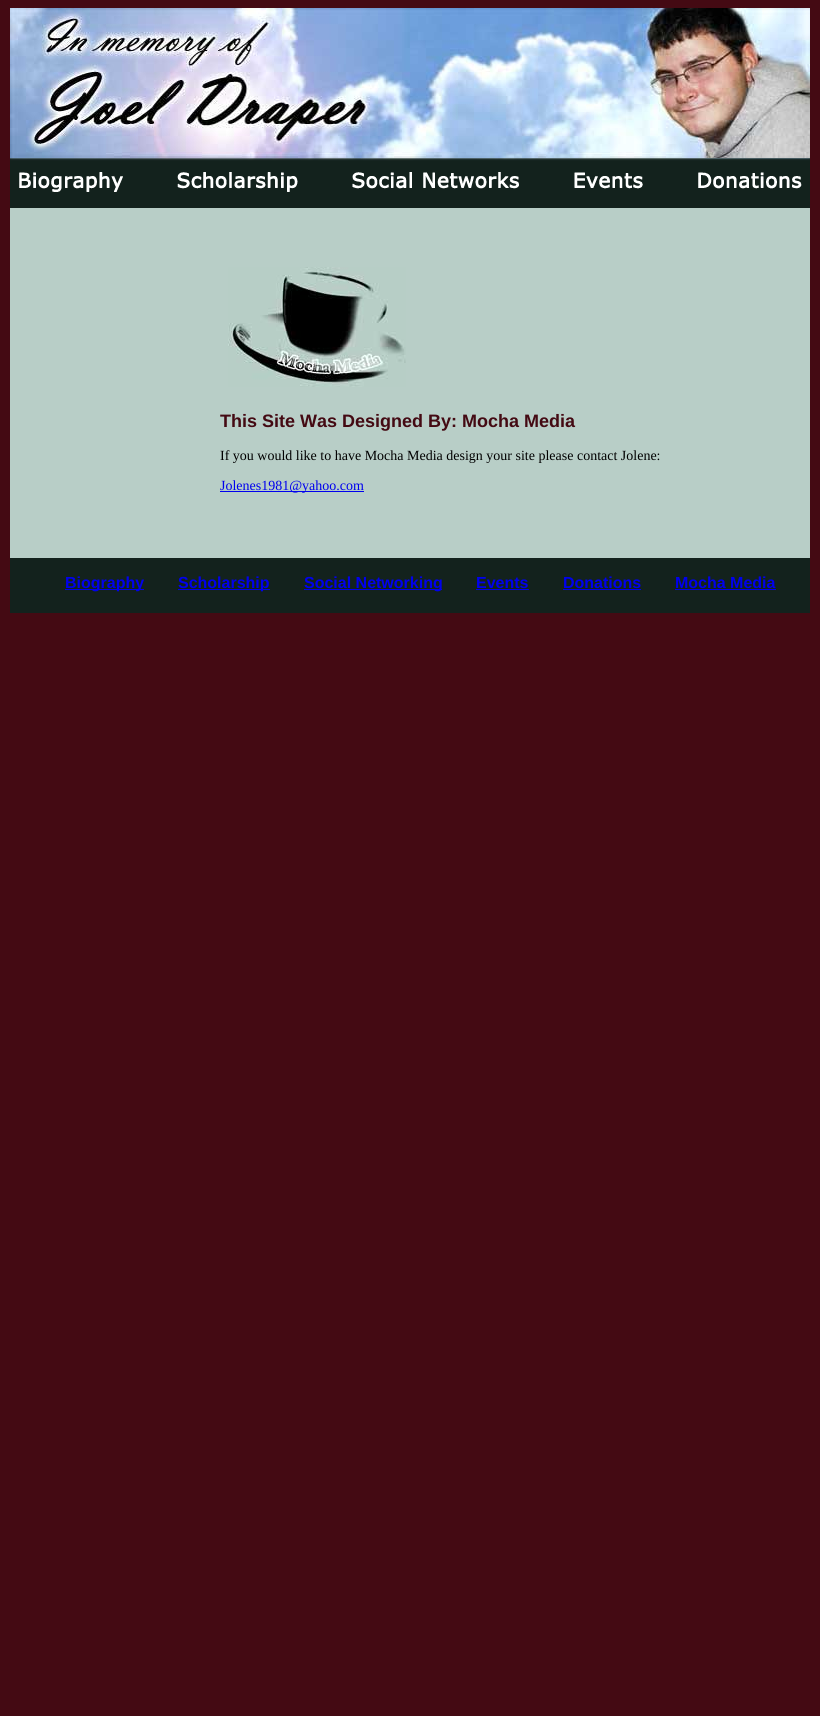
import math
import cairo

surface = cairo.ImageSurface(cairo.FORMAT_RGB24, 820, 1716)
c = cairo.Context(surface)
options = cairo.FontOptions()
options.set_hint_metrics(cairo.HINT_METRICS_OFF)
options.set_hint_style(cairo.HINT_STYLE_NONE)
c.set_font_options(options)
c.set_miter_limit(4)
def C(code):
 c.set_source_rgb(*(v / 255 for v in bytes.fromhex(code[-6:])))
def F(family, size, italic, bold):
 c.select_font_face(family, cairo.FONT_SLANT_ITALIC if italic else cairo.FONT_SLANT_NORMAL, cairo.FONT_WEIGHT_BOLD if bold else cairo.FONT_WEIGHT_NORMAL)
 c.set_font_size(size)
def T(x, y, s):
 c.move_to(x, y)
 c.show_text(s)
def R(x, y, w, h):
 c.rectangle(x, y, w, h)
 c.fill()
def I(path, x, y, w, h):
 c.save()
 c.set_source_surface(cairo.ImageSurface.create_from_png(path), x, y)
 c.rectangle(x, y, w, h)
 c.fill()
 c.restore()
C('440a13')
c.paint()
I('1.png',10,8,800,150)
I('2.png',10,158,141,50)
I('3.png',151,158,175,50)
I('4.png',326,158,221,50)
I('5.png',547,158,124,50)
I('6.png',671,158,139,50)
C('b8cec7')
R(10,208,800,350)
I('7.png',228,267,178,120)
F('Liberation Sans',18,0,1)
C('440a13')
T(220,427,'This Site Was Designed By: Mocha Media')
F('Liberation Serif',14,0,0)
C('000000')
T(220,460,'If you would like to have Mocha Media design your site please contact Jolene:')
C('0000ee')
R(220,491,144,1)
T(220,490,'Jolenes1981@yahoo.com')
C('13221d')
R(10,558,800,55)
C('0000ee')
R(65,589,79,1)
F('Liberation Sans',16,0,1)
T(65,588,'Biography')
R(178,589,92,1)
T(178,588,'Scholarship')
R(304,589,138,1)
T(304,588,'Social Networking')
T(476,588,'Events')
R(476,589,53,1)
T(563,588,'Donations')
R(563,589,78,1)
T(675,588,'Mocha Media')
R(675,589,101,1)
surface.write_to_png('o.png')
